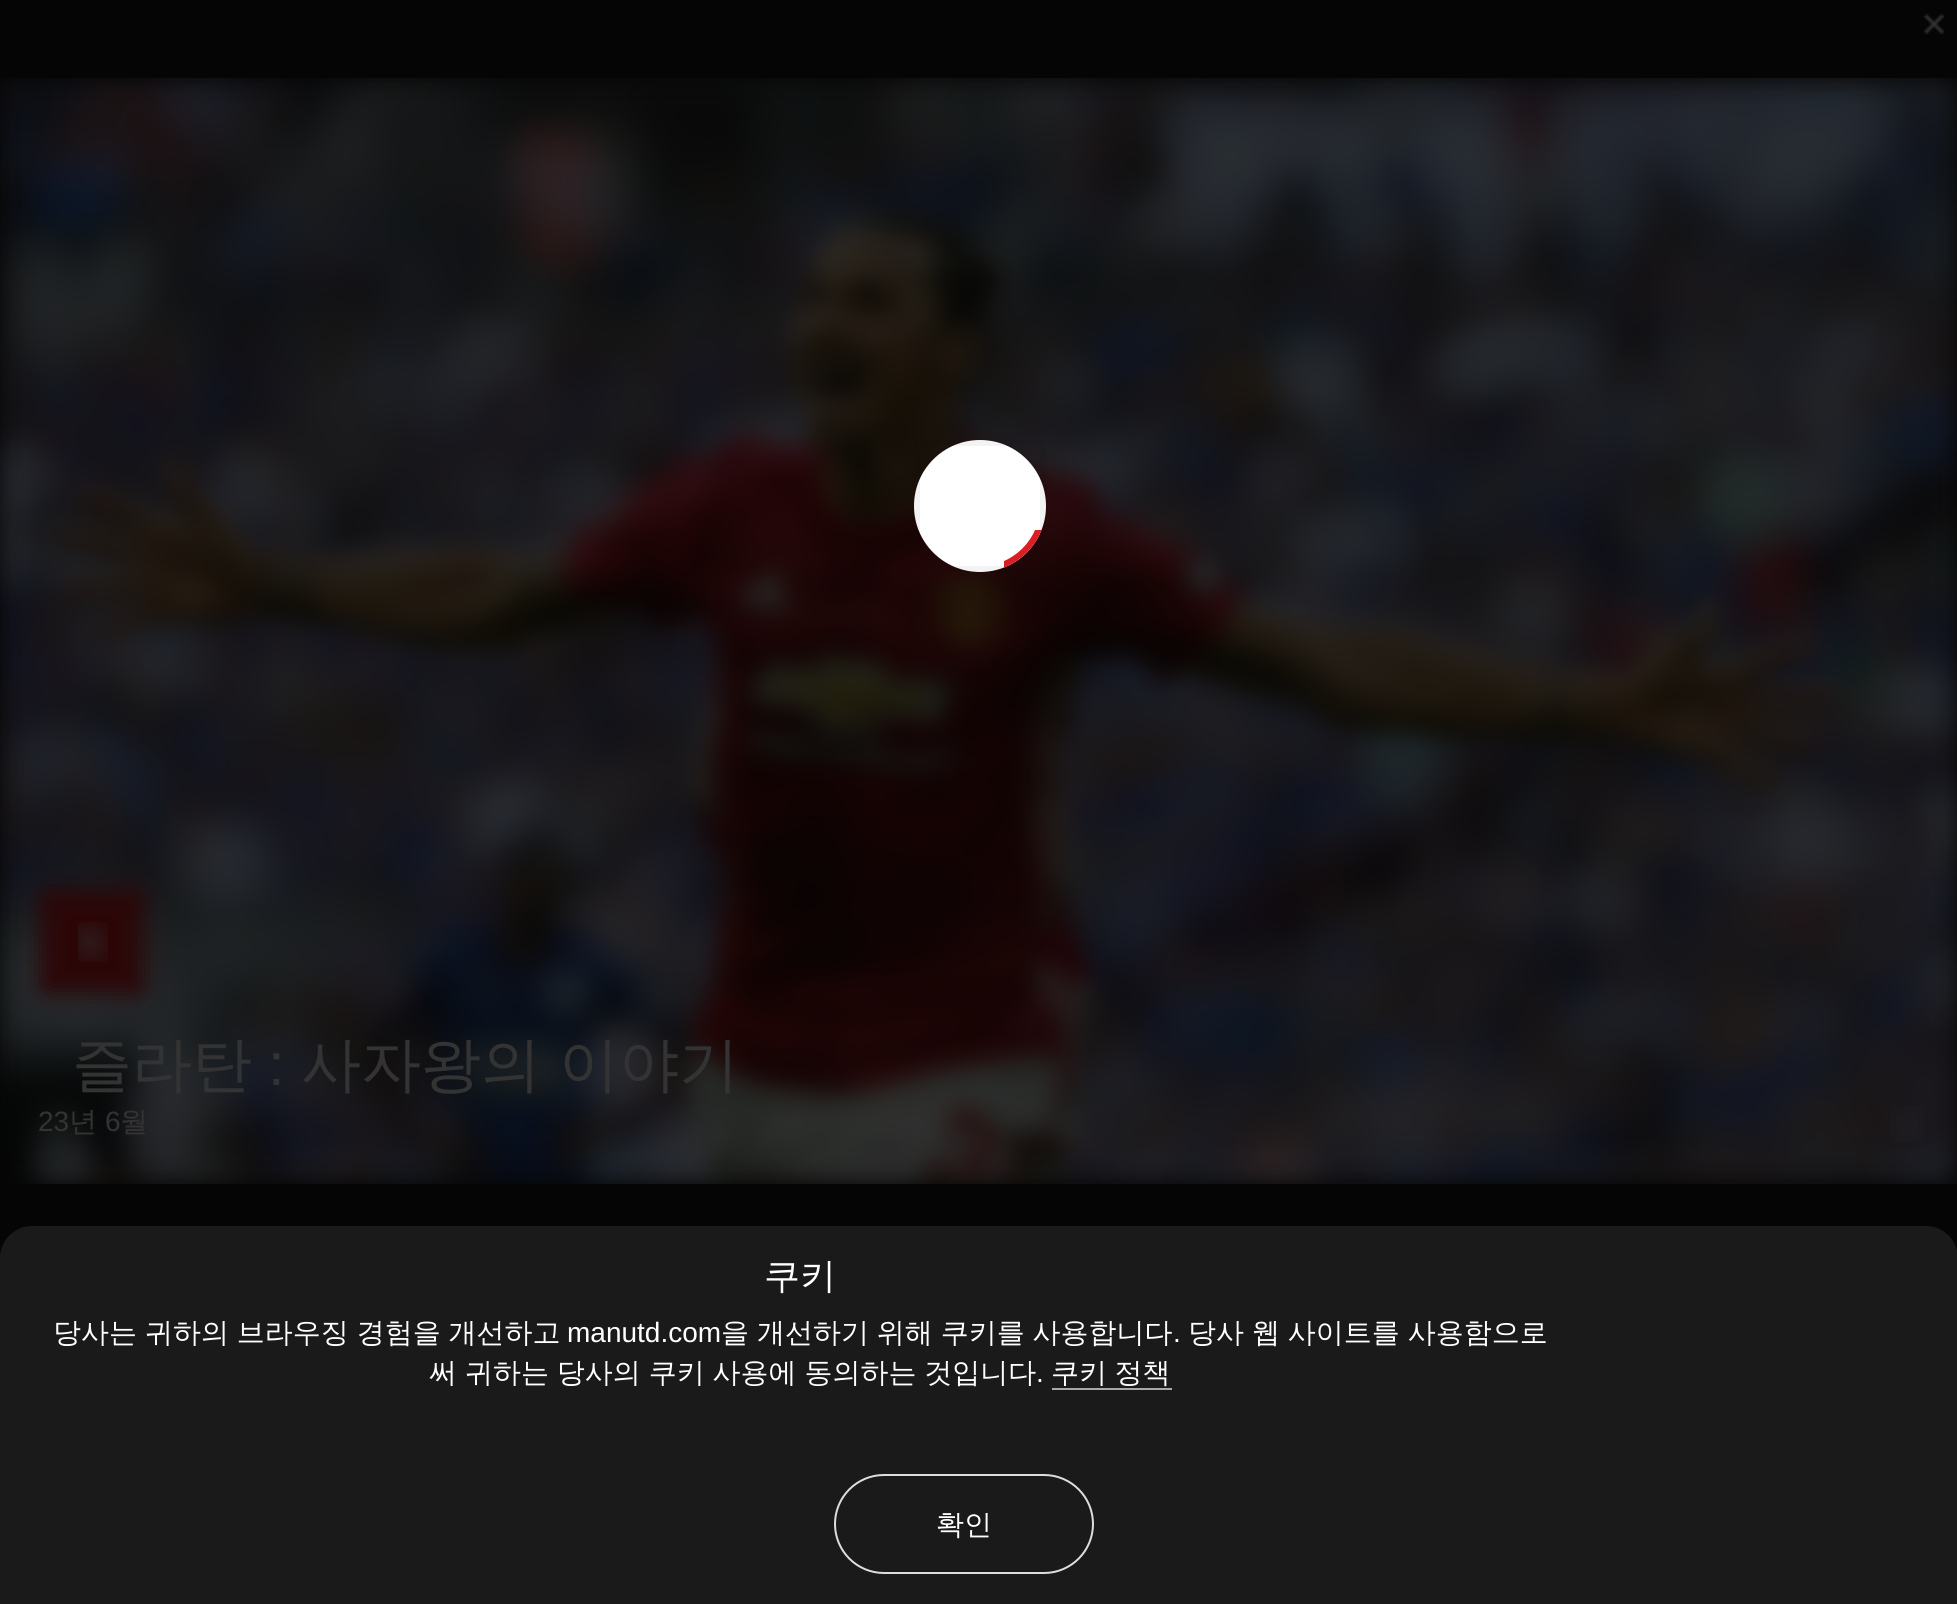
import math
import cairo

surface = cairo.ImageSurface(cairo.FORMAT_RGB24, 1957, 1604)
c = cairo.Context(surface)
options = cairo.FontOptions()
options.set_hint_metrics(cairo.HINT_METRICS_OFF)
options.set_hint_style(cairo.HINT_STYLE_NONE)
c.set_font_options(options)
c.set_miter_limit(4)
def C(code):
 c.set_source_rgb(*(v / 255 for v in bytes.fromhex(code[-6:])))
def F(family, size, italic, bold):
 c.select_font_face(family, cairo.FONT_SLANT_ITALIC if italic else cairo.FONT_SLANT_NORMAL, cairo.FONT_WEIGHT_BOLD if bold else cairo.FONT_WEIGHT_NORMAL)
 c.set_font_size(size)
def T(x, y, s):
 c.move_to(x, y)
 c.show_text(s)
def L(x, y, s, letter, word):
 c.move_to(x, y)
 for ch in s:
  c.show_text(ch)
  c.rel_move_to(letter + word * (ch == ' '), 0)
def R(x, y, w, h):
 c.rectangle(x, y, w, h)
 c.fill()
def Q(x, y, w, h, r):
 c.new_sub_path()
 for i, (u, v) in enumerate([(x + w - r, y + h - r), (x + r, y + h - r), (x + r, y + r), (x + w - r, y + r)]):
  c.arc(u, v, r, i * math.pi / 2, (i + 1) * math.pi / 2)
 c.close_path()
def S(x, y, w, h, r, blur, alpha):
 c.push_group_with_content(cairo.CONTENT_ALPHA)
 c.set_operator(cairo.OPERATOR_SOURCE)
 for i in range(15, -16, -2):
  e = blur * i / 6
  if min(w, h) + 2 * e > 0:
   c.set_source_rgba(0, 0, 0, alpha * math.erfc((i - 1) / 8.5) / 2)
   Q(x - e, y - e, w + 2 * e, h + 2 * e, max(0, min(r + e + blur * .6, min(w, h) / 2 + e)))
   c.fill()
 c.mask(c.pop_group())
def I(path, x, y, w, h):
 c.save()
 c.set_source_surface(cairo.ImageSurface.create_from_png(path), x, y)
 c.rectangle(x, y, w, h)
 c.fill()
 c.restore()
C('050505')
c.paint()
I('1.png',1924,13,20,21)
I('2.png',0,78,1957,1106)
C('ffffff')
c.arc(980,506,66,0,2 * math.pi)
c.fill()
c.rectangle(917,443,126,126)
c.set_source_rgba(0,0,0,0.05)
c.set_line_width(6)
c.stroke()
c.save()
c.rectangle(1004,530,110,110)
c.clip()
c.arc(980,506,63,0,2 * math.pi)
C('db1d24')
c.stroke()
c.restore()
C('2c0607')
S(40,890,104,104,8,12,1)
I('3.png',78,922,30,40)
F('WenQuanYi Zen Hei Medium',60,0,0)
C('333333')
T(72,1085,'즐라탄')
F('Liberation Sans',60,0,0)
T(268,1085,':')
F('WenQuanYi Zen Hei Medium',60,0,0)
T(301,1085,'사자왕의 이야기')
F('Liberation Sans',28,0,0)
T(38,1131,'23')
F('WenQuanYi Zen Hei Medium',28,0,0)
T(69,1131,'년')
F('Liberation Sans',28,0,0)
T(105,1131,'6')
F('WenQuanYi Zen Hei Medium',28,0,0)
T(120,1131,'월')
I('4.png',1890,1106,34,36)
C('1a1a1a')
c.new_path()
c.move_to(32,1226)
c.line_to(1926,1226)
c.curve_to(1943.5,1226,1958,1240.5,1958,1258)
c.line_to(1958,1604)
c.line_to(0,1604)
c.line_to(0,1258)
c.curve_to(0,1240.5,14.5,1226,32,1226)
c.close_path()
c.fill()
F('WenQuanYi Zen Hei Medium',36,0,0)
C('ffffff')
T(764,1288,'쿠키')
F('WenQuanYi Zen Hei Medium',28,0,0)
L(53,1342,'당사는 귀하의 브라우징 경험을 개선하고',0,-.5)
F('Liberation Sans',28,0,0)
T(567,1342,'manutd.com')
F('WenQuanYi Zen Hei Medium',28,0,0)
L(721,1342,'을 개선하기 위해 쿠키를 사용합니다',0,-.5)
F('Liberation Sans',28,0,0)
T(1173,1342,'.')
F('WenQuanYi Zen Hei Medium',28,0,0)
L(1188,1342,'당사 웹 사이트를 사용함으로',0,-.5)
L(429,1382,'써 귀하는 당사의 쿠키 사용에 동의하는 것입니다',0,-.5)
F('Liberation Sans',28,0,0)
T(1036,1382,'.')
F('WenQuanYi Zen Hei Medium',28,0,0)
L(1051,1382,'쿠키 정책',0,-1)
C('a8a8a8')
R(1052,1388,120,2)
Q(835,1475,258,98,49)
C('dddddd')
c.set_line_width(2)
c.stroke()
C('ffffff')
T(936,1534,'확인')
surface.write_to_png('o.png')
